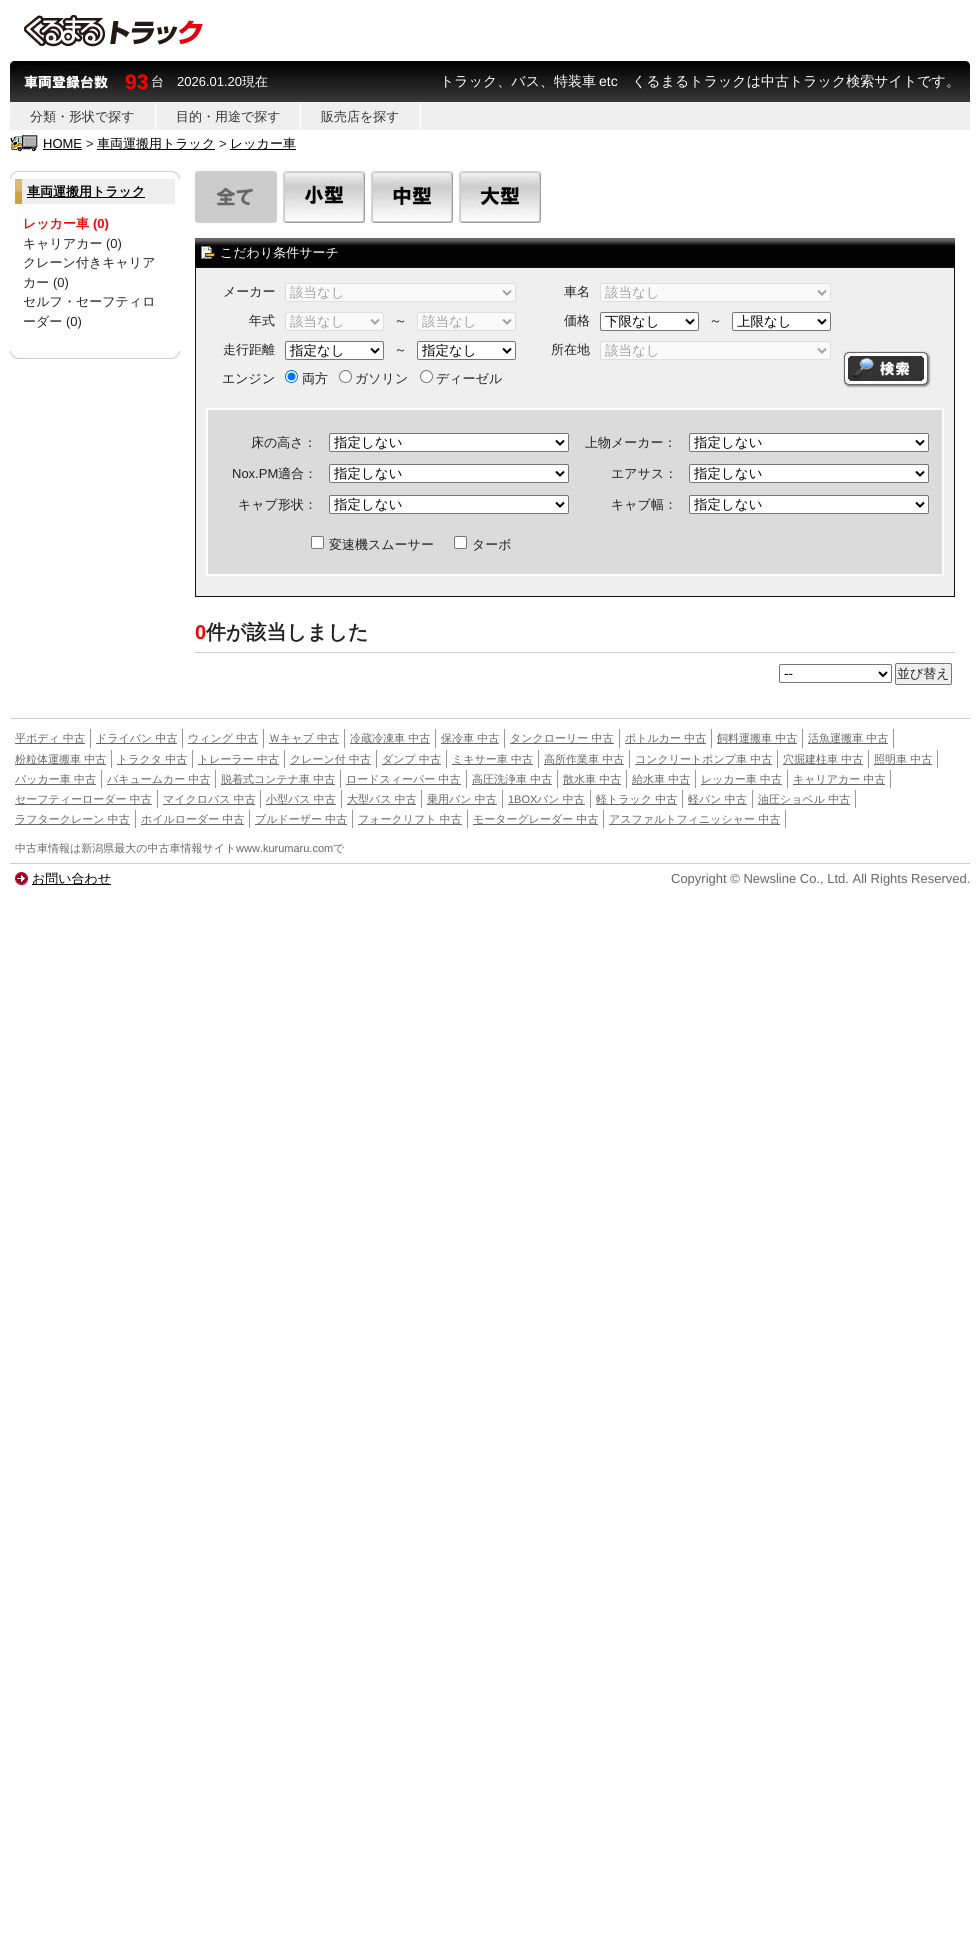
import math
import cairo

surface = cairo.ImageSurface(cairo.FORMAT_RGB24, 980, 1945)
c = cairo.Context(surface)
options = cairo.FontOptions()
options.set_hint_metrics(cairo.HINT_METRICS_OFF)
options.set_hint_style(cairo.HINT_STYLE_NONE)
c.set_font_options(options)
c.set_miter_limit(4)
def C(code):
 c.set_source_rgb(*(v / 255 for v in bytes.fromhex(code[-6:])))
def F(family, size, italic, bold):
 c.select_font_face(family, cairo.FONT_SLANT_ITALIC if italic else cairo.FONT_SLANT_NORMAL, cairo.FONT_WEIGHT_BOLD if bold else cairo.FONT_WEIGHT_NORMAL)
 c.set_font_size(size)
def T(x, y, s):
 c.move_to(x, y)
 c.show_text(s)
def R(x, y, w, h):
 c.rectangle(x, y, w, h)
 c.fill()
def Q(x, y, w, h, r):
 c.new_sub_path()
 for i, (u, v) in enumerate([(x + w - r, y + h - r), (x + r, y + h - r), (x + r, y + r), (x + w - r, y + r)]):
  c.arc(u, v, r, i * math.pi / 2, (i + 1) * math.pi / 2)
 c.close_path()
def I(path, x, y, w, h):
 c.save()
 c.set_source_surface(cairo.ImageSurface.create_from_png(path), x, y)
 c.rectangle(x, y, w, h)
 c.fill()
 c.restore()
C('ffffff')
c.paint()
I('1.png',24,15,179,32)
I('2.png',10,61,960,41)
F('Liberation Sans',21,0,1)
C('ff0000')
T(125,89,'93')
F('WenQuanYi Zen Hei Medium',13,0,0)
C('ffffff')
T(151,86,'台')
F('Liberation Sans',13,0,0)
T(177,86,'2026.01.20')
F('WenQuanYi Zen Hei Medium',13,0,0)
T(242,86,'現在')
F('WenQuanYi Zen Hei Medium',14,0,0)
T(440,86,'トラック、バス、特装車')
F('Liberation Sans',14,0,0)
T(599,86,'etc')
F('WenQuanYi Zen Hei Medium',14,0,0)
T(632,86,'くるまるトラックは中古トラック検索サイトです。')
C('efefef')
R(10,102,960,28)
C('ffffff')
R(155,102,1,29)
F('WenQuanYi Zen Hei Medium',13,0,0)
C('333333')
T(30,121,'分類・形状で探す')
C('ffffff')
R(300,102,1,29)
C('333333')
T(176,121,'目的・用途で探す')
C('ffffff')
R(420,102,1,29)
C('333333')
T(321,121,'販売店を探す')
I('3.png',10,135,28,17)
F('Liberation Sans',13,0,0)
C('000000')
T(43,148,'HOME')
R(43,149,39,1)
C('222222')
T(86,148,'>')
C('000000')
R(97,149,118,1)
F('WenQuanYi Zen Hei Medium',13,0,0)
T(97,148,'車両運搬用トラック')
F('Liberation Sans',13,0,0)
C('222222')
T(219,148,'>')
C('000000')
R(230,149,66,1)
F('WenQuanYi Zen Hei Medium',13,0,0)
T(230,148,'レッカー車')
I('4.png',10,171,170,8)
C('eeeeee')
R(22,179,153,25)
I('5.png',15,179,7,25)
C('000000')
R(27,197,118,1)
F('WenQuanYi Zen Hei',13,0,1)
T(27,196,'車両運搬用トラック')
C('ff0000')
T(23,228,'レッカー車')
F('Liberation Sans',13,0,1)
T(93,228,'(0)')
F('WenQuanYi Zen Hei Medium',13,0,0)
C('222222')
T(23,248,'キャリアカー')
F('Liberation Sans',13,0,0)
T(106,248,'(0)')
F('WenQuanYi Zen Hei Medium',13,0,0)
T(23,267,'クレーン付きキャリア')
T(23,287,'カー')
F('Liberation Sans',13,0,0)
T(53,287,'(0)')
F('WenQuanYi Zen Hei Medium',13,0,0)
T(23,306,'セルフ・セーフティロ')
T(23,326,'ーダー')
F('Liberation Sans',13,0,0)
T(66,326,'(0)')
I('6.png',10,351,170,8)
I('7.png',195,171,82,52)
I('8.png',283,171,82,52)
I('9.png',371,171,82,52)
I('10.png',459,171,82,52)
I('11.png',195,238,760,29)
F('WenQuanYi Zen Hei Medium',13,0,0)
C('ffffff')
T(220,257,'こだわり条件サーチ')
C('efefef')
c.rectangle(195.5,267.5,759,329)
c.fill_preserve()
C('111111')
c.set_line_width(1)
c.stroke()
C('222222')
T(223,296,'メーカー')
C('fafafa')
Q(285.5,283.5,230,18,1.5)
c.fill_preserve()
C('dddddd')
c.stroke()
c.new_path()
c.move_to(503,290.5)
c.line_to(507,294.5)
c.line_to(511,290.5)
C('a1a1a1')
c.set_line_width(2)
c.stroke()
F('WenQuanYi Zen Hei Medium',13.5,0,0)
T(290,297,'該当なし')
F('WenQuanYi Zen Hei Medium',13,0,0)
C('222222')
T(564,296,'車名')
C('fafafa')
Q(600.5,283.5,230,18,1.5)
c.fill_preserve()
C('dddddd')
c.set_line_width(1)
c.stroke()
c.new_path()
c.move_to(818,290.5)
c.line_to(822,294.5)
c.line_to(826,290.5)
C('a1a1a1')
c.set_line_width(2)
c.stroke()
F('WenQuanYi Zen Hei Medium',13.5,0,0)
T(605,297,'該当なし')
I('12.png',843,351,88,37)
F('WenQuanYi Zen Hei Medium',13,0,0)
C('222222')
T(249,325,'年式')
C('fafafa')
Q(285.5,312.5,98,18,1.5)
c.fill_preserve()
C('dddddd')
c.set_line_width(1)
c.stroke()
c.new_path()
c.move_to(371,319.5)
c.line_to(375,323.5)
c.line_to(379,319.5)
C('a1a1a1')
c.set_line_width(2)
c.stroke()
F('WenQuanYi Zen Hei Medium',13.5,0,0)
T(290,326,'該当なし')
F('WenQuanYi Zen Hei Medium',13,0,0)
C('222222')
T(394,325,'～')
C('fafafa')
Q(417.5,312.5,98,18,1.5)
c.fill_preserve()
C('dddddd')
c.set_line_width(1)
c.stroke()
c.new_path()
c.move_to(503,319.5)
c.line_to(507,323.5)
c.line_to(511,319.5)
C('a1a1a1')
c.set_line_width(2)
c.stroke()
F('WenQuanYi Zen Hei Medium',13.5,0,0)
T(422,326,'該当なし')
F('WenQuanYi Zen Hei Medium',13,0,0)
C('222222')
T(564,325,'価格')
C('ffffff')
Q(600.5,312.5,98,18,1.5)
c.fill_preserve()
C('767676')
c.set_line_width(1)
c.stroke()
c.new_path()
c.move_to(686,319.5)
c.line_to(690,323.5)
c.line_to(694,319.5)
C('000000')
c.set_line_width(2)
c.stroke()
F('WenQuanYi Zen Hei Medium',13.5,0,0)
T(605,326,'下限なし')
F('WenQuanYi Zen Hei Medium',13,0,0)
C('222222')
T(709,325,'～')
C('ffffff')
Q(732.5,312.5,98,18,1.5)
c.fill_preserve()
C('767676')
c.set_line_width(1)
c.stroke()
c.new_path()
c.move_to(818,319.5)
c.line_to(822,323.5)
c.line_to(826,319.5)
C('000000')
c.set_line_width(2)
c.stroke()
F('WenQuanYi Zen Hei Medium',13.5,0,0)
T(737,326,'上限なし')
F('WenQuanYi Zen Hei Medium',13,0,0)
C('222222')
T(223,354,'走行距離')
C('ffffff')
Q(285.5,341.5,98,18,1.5)
c.fill_preserve()
C('767676')
c.set_line_width(1)
c.stroke()
c.new_path()
c.move_to(371,348.5)
c.line_to(375,352.5)
c.line_to(379,348.5)
C('000000')
c.set_line_width(2)
c.stroke()
F('WenQuanYi Zen Hei Medium',13.5,0,0)
T(290,355,'指定なし')
F('WenQuanYi Zen Hei Medium',13,0,0)
C('222222')
T(394,354,'～')
C('ffffff')
Q(417.5,341.5,98,18,1.5)
c.fill_preserve()
C('767676')
c.set_line_width(1)
c.stroke()
c.new_path()
c.move_to(503,348.5)
c.line_to(507,352.5)
c.line_to(511,348.5)
C('000000')
c.set_line_width(2)
c.stroke()
F('WenQuanYi Zen Hei Medium',13.5,0,0)
T(422,355,'指定なし')
F('WenQuanYi Zen Hei Medium',13,0,0)
C('222222')
T(551,354,'所在地')
C('fafafa')
Q(600.5,341.5,230,18,1.5)
c.fill_preserve()
C('dddddd')
c.set_line_width(1)
c.stroke()
c.new_path()
c.move_to(818,348.5)
c.line_to(822,352.5)
c.line_to(826,348.5)
C('a1a1a1')
c.set_line_width(2)
c.stroke()
F('WenQuanYi Zen Hei Medium',13.5,0,0)
T(605,355,'該当なし')
F('WenQuanYi Zen Hei Medium',13,0,0)
C('222222')
T(222,383,'エンジン')
C('ffffff')
c.new_path()
c.arc(291.5,376.5,6,0,2 * math.pi)
c.fill_preserve()
C('0075ff')
c.set_line_width(1)
c.stroke()
c.arc(291.5,376.5,4,0,2 * math.pi)
c.fill()
C('222222')
T(302,383,'両方')
C('ffffff')
c.new_path()
c.arc(345.5,376.5,6,0,2 * math.pi)
c.fill_preserve()
C('767676')
c.stroke()
C('222222')
T(355,383,'ガソリン')
C('ffffff')
c.new_path()
c.arc(426.5,376.5,6,0,2 * math.pi)
c.fill_preserve()
C('767676')
c.stroke()
C('222222')
T(436,383,'ディーゼル')
C('dbdbdb')
c.rectangle(207,409,736,166)
c.fill_preserve()
C('ffffff')
c.set_line_width(2)
c.stroke()
C('222222')
T(251,447,'床の高さ：')
C('ffffff')
Q(329.5,433.5,239,18,1.5)
c.fill_preserve()
C('767676')
c.set_line_width(1)
c.stroke()
c.new_path()
c.move_to(556,440.5)
c.line_to(560,444.5)
c.line_to(564,440.5)
C('000000')
c.set_line_width(2)
c.stroke()
F('WenQuanYi Zen Hei Medium',13.5,0,0)
T(334,447,'指定しない')
F('WenQuanYi Zen Hei Medium',13,0,0)
C('222222')
T(585,447,'上物メーカー：')
C('ffffff')
Q(689.5,433.5,239,18,1.5)
c.fill_preserve()
C('767676')
c.set_line_width(1)
c.stroke()
c.new_path()
c.move_to(916,440.5)
c.line_to(920,444.5)
c.line_to(924,440.5)
C('000000')
c.set_line_width(2)
c.stroke()
F('WenQuanYi Zen Hei Medium',13.5,0,0)
T(694,447,'指定しない')
F('Liberation Sans',13,0,0)
C('222222')
T(232,478,'Nox.PM')
F('WenQuanYi Zen Hei Medium',13,0,0)
T(278,478,'適合：')
C('ffffff')
Q(329.5,464.5,239,18,1.5)
c.fill_preserve()
C('767676')
c.set_line_width(1)
c.stroke()
c.new_path()
c.move_to(556,471.5)
c.line_to(560,475.5)
c.line_to(564,471.5)
C('000000')
c.set_line_width(2)
c.stroke()
F('WenQuanYi Zen Hei Medium',13.5,0,0)
T(334,478,'指定しない')
F('WenQuanYi Zen Hei Medium',13,0,0)
C('222222')
T(611,478,'エアサス：')
C('ffffff')
Q(689.5,464.5,239,18,1.5)
c.fill_preserve()
C('767676')
c.set_line_width(1)
c.stroke()
c.new_path()
c.move_to(916,471.5)
c.line_to(920,475.5)
c.line_to(924,471.5)
C('000000')
c.set_line_width(2)
c.stroke()
F('WenQuanYi Zen Hei Medium',13.5,0,0)
T(694,478,'指定しない')
F('WenQuanYi Zen Hei Medium',13,0,0)
C('222222')
T(238,509,'キャブ形状：')
C('ffffff')
Q(329.5,495.5,239,18,1.5)
c.fill_preserve()
C('767676')
c.set_line_width(1)
c.stroke()
c.new_path()
c.move_to(556,502.5)
c.line_to(560,506.5)
c.line_to(564,502.5)
C('000000')
c.set_line_width(2)
c.stroke()
F('WenQuanYi Zen Hei Medium',13.5,0,0)
T(334,509,'指定しない')
F('WenQuanYi Zen Hei Medium',13,0,0)
C('222222')
T(611,509,'キャブ幅：')
C('ffffff')
Q(689.5,495.5,239,18,1.5)
c.fill_preserve()
C('767676')
c.set_line_width(1)
c.stroke()
c.new_path()
c.move_to(916,502.5)
c.line_to(920,506.5)
c.line_to(924,502.5)
C('000000')
c.set_line_width(2)
c.stroke()
F('WenQuanYi Zen Hei Medium',13.5,0,0)
T(694,509,'指定しない')
C('ffffff')
Q(311.5,536.5,12,12,1.5)
c.fill_preserve()
C('767676')
c.set_line_width(1)
c.stroke()
F('WenQuanYi Zen Hei Medium',13,0,0)
C('222222')
T(329,549,'変速機スムーサー')
C('ffffff')
Q(454.5,536.5,12,12,1.5)
c.fill_preserve()
C('767676')
c.stroke()
C('222222')
T(472,549,'ターボ')
C('cccccc')
R(195,652,760,1)
F('Liberation Sans',20,0,1)
C('ff0000')
T(195,639,'0')
F('WenQuanYi Zen Hei',20,0,1)
C('222222')
T(206,639,'件が該当しました')
Q(779.5,664.5,112,18,1.5)
C('767676')
c.stroke()
c.new_path()
c.move_to(879,672)
c.line_to(883,676)
c.line_to(887,672)
C('000000')
c.set_line_width(2)
c.stroke()
F('Liberation Sans',13.5,0,0)
T(784,678,'--')
C('efefef')
Q(895.5,663.5,56,21,1.5)
c.fill_preserve()
C('767676')
c.set_line_width(1)
c.stroke()
F('WenQuanYi Zen Hei Medium',13,0,0)
C('222222')
T(897,678,'並び替え')
C('cccccc')
R(10,718,960,1)
C('999999')
R(90,729,1,19)
C('666666')
R(15,743,70,1)
F('WenQuanYi Zen Hei Medium',11,0,0)
T(15,742,'平ボディ 中古')
C('999999')
R(182,729,1,19)
C('666666')
R(96,743,81,1)
T(96,742,'ドライバン 中古')
C('999999')
R(263,729,1,19)
C('666666')
R(188,743,70,1)
T(188,742,'ウィング 中古')
C('999999')
R(344,729,1,19)
C('666666')
R(269,743,70,1)
T(269,742,'Ｗキャブ 中古')
C('999999')
R(435,729,1,19)
C('666666')
R(350,743,80,1)
T(350,742,'冷蔵冷凍車 中古')
C('999999')
R(504,729,1,19)
C('666666')
R(441,743,58,1)
T(441,742,'保冷車 中古')
C('999999')
R(619,729,1,19)
C('666666')
R(510,743,104,1)
T(510,742,'タンクローリー 中古')
C('999999')
R(711,729,1,19)
C('666666')
R(625,743,81,1)
T(625,742,'ボトルカー 中古')
C('999999')
R(802,729,1,19)
C('666666')
R(717,743,80,1)
T(717,742,'飼料運搬車 中古')
C('999999')
R(893,729,1,19)
C('666666')
R(808,743,80,1)
T(808,742,'活魚運搬車 中古')
C('999999')
R(111,750,1,18)
C('666666')
R(15,764,91,1)
T(15,763,'粉粒体運搬車 中古')
C('999999')
R(192,750,1,18)
C('666666')
R(117,764,70,1)
T(117,763,'トラクタ 中古')
C('999999')
R(284,750,1,18)
C('666666')
R(198,764,81,1)
T(198,763,'トレーラー 中古')
C('999999')
R(376,750,1,18)
C('666666')
R(290,764,81,1)
T(290,763,'クレーン付 中古')
C('999999')
R(446,750,1,18)
C('666666')
R(382,764,59,1)
T(382,763,'ダンプ 中古')
C('999999')
R(538,750,1,18)
C('666666')
R(452,764,81,1)
T(452,763,'ミキサー車 中古')
C('999999')
R(629,750,1,18)
C('666666')
R(544,764,80,1)
T(544,763,'高所作業車 中古')
C('999999')
R(777,750,1,18)
C('666666')
R(635,764,137,1)
T(635,763,'コンクリートポンプ車 中古')
C('999999')
R(868,750,1,18)
C('666666')
R(783,764,80,1)
T(783,763,'穴掘建柱車 中古')
C('999999')
R(937,750,1,18)
C('666666')
R(874,764,58,1)
T(874,763,'照明車 中古')
C('999999')
R(101,770,1,18)
C('666666')
R(15,784,81,1)
T(15,783,'パッカー車 中古')
C('999999')
R(215,770,1,18)
C('666666')
R(107,784,103,1)
T(107,783,'バキュームカー 中古')
C('999999')
R(340,770,1,18)
C('666666')
R(221,784,114,1)
T(221,783,'脱着式コンテナ車 中古')
C('999999')
R(466,770,1,18)
C('666666')
R(346,784,115,1)
T(346,783,'ロードスィーパー 中古')
C('999999')
R(557,770,1,18)
C('666666')
R(472,784,80,1)
T(472,783,'高圧洗浄車 中古')
C('999999')
R(626,770,1,18)
C('666666')
R(563,784,58,1)
T(563,783,'散水車 中古')
C('999999')
R(695,770,1,18)
C('666666')
R(632,784,58,1)
T(632,783,'給水車 中古')
C('999999')
R(787,770,1,18)
C('666666')
R(701,784,81,1)
T(701,783,'レッカー車 中古')
C('999999')
R(890,770,1,18)
C('666666')
R(793,784,92,1)
T(793,783,'キャリアカー 中古')
C('999999')
R(157,790,1,18)
C('666666')
R(15,804,137,1)
T(15,803,'セーフティーローダー 中古')
C('999999')
R(260,790,1,18)
C('666666')
R(163,804,92,1)
T(163,803,'マイクロバス 中古')
C('999999')
R(341,790,1,18)
C('666666')
R(266,804,70,1)
T(266,803,'小型バス 中古')
C('999999')
R(421,790,1,18)
C('666666')
R(347,804,69,1)
T(347,803,'大型バス 中古')
C('999999')
R(502,790,1,18)
C('666666')
R(427,804,70,1)
T(427,803,'乗用バン 中古')
C('999999')
R(590,790,1,18)
F('Liberation Sans',11,0,0)
C('666666')
T(508,803,'1BOX')
R(508,804,77,1)
F('WenQuanYi Zen Hei Medium',11,0,0)
T(537,803,'バン 中古')
C('999999')
R(682,790,1,18)
C('666666')
R(596,804,81,1)
T(596,803,'軽トラック 中古')
C('999999')
R(752,790,1,18)
C('666666')
R(688,804,59,1)
T(688,803,'軽バン 中古')
C('999999')
R(855,790,1,18)
C('666666')
R(758,804,92,1)
T(758,803,'油圧ショベル 中古')
C('999999')
R(135,810,1,18)
C('666666')
R(15,824,115,1)
T(15,823,'ラフタークレーン 中古')
C('999999')
R(249,810,1,18)
C('666666')
R(141,824,103,1)
T(141,823,'ホイルローダー 中古')
C('999999')
R(352,810,1,18)
C('666666')
R(255,824,92,1)
T(255,823,'ブルドーザー 中古')
C('999999')
R(467,810,1,18)
C('666666')
R(358,824,104,1)
T(358,823,'フォークリフト 中古')
C('999999')
R(603,810,1,18)
C('666666')
R(473,824,125,1)
T(473,823,'モーターグレーダー 中古')
C('999999')
R(785,810,1,18)
C('666666')
R(609,824,171,1)
T(609,823,'アスファルトフィニッシャー 中古')
T(15,852,'中古車情報は新潟県最大の中古車情報サイト')
F('Liberation Sans',11,0,0)
T(236,852,'www.kurumaru.com')
F('WenQuanYi Zen Hei Medium',11,0,0)
T(333,852,'で')
C('cccccc')
R(10,863,960,1)
I('13.png',15,872,13,13)
C('000000')
R(32,884,79,1)
F('WenQuanYi Zen Hei Medium',13,0,0)
T(32,883,'お問い合わせ')
F('Liberation Sans',13,0,0)
C('666666')
T(671,883,'Copyright © Newsline Co., Ltd. All Rights Reserved.')
surface.write_to_png('o.png')
